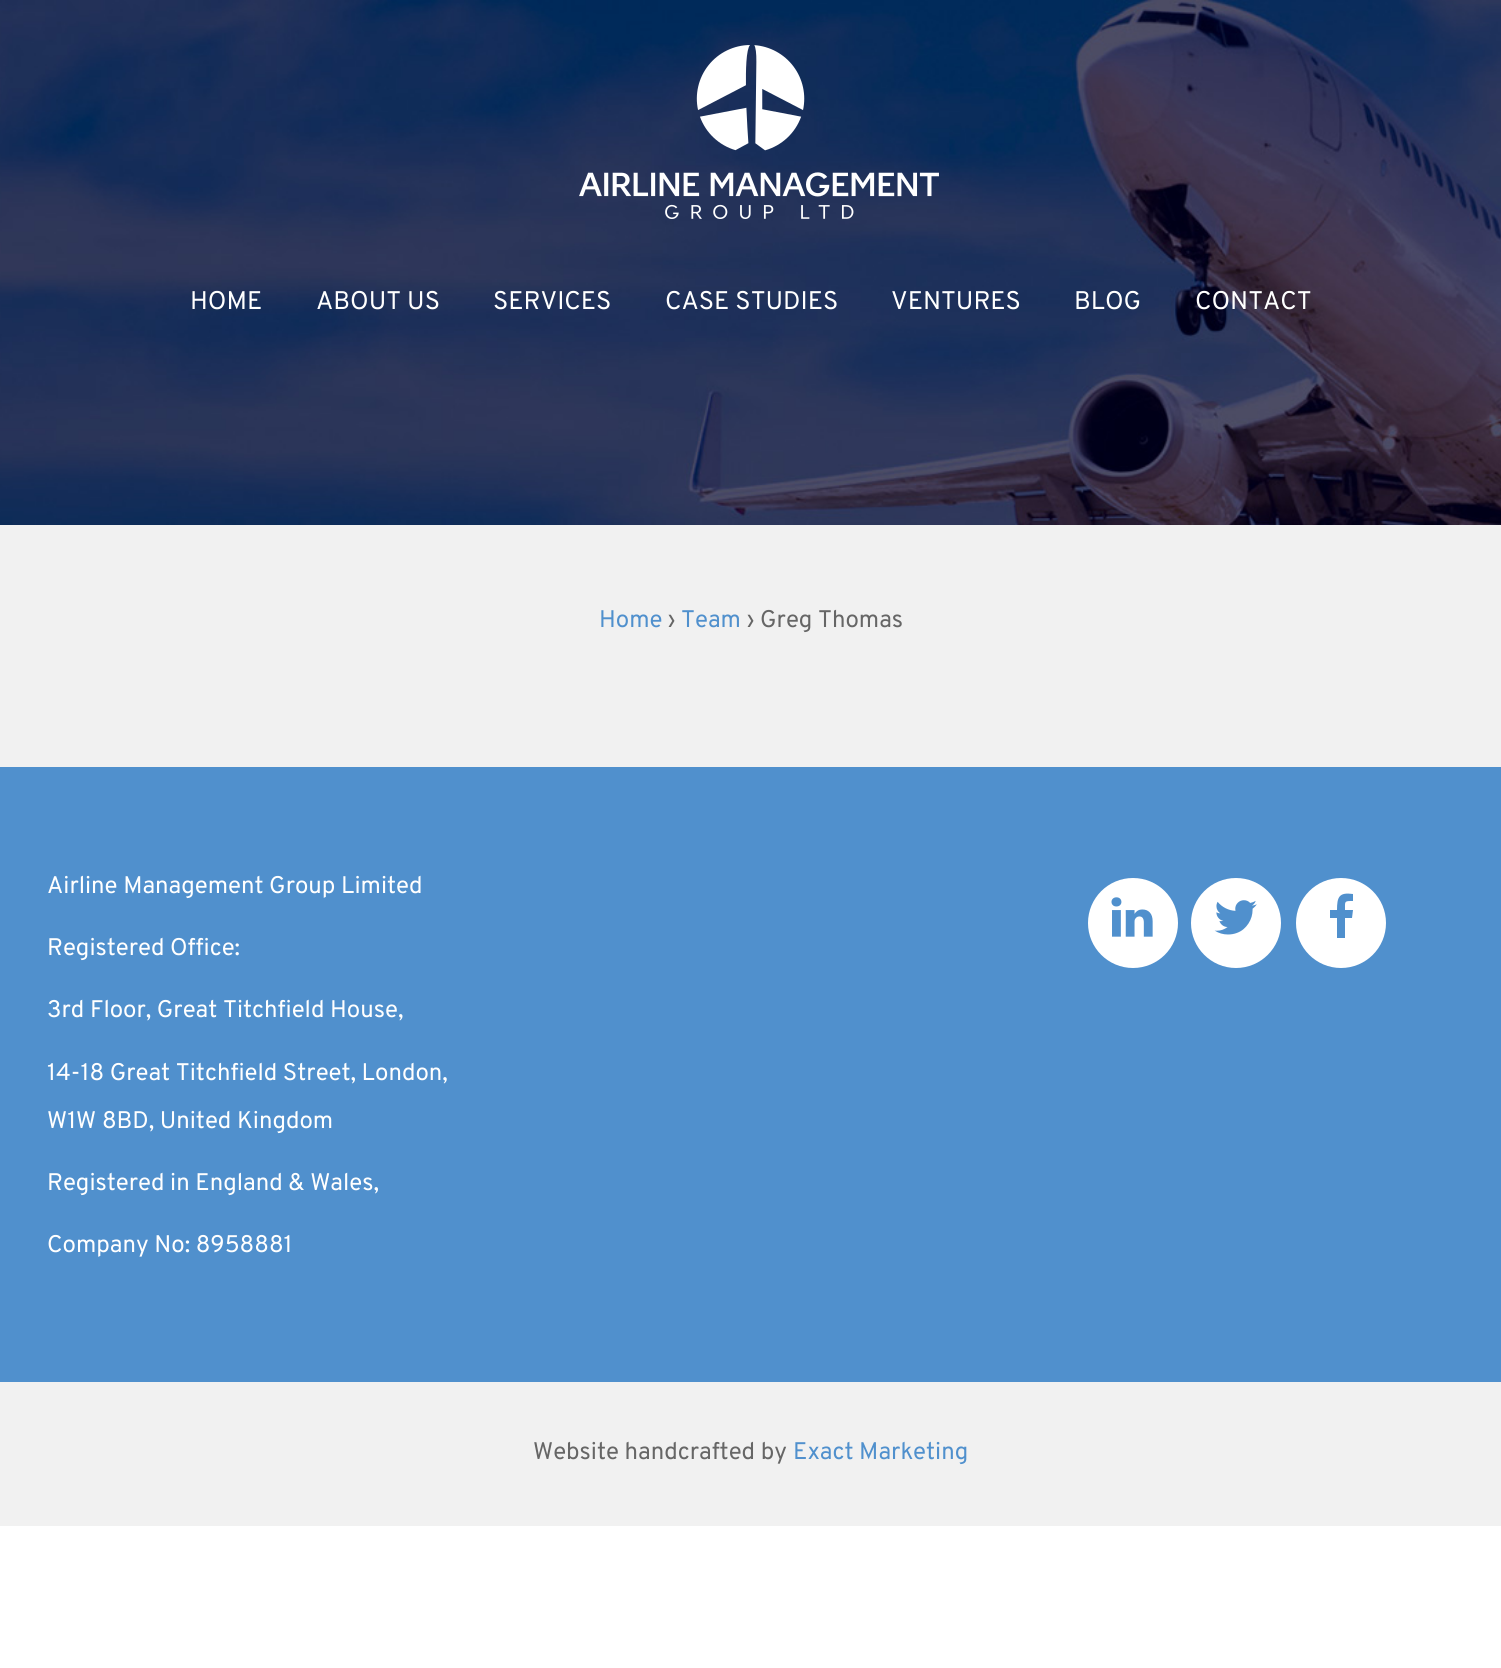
import math
import cairo

surface = cairo.ImageSurface(cairo.FORMAT_RGB24, 1501, 1668)
c = cairo.Context(surface)
options = cairo.FontOptions()
options.set_hint_metrics(cairo.HINT_METRICS_OFF)
options.set_hint_style(cairo.HINT_STYLE_NONE)
c.set_font_options(options)
c.set_miter_limit(4)
def C(code):
 c.set_source_rgb(*(v / 255 for v in bytes.fromhex(code[-6:])))
def F(family, size, italic, bold):
 c.select_font_face(family, cairo.FONT_SLANT_ITALIC if italic else cairo.FONT_SLANT_NORMAL, cairo.FONT_WEIGHT_BOLD if bold else cairo.FONT_WEIGHT_NORMAL)
 c.set_font_size(size)
def T(x, y, s):
 c.move_to(x, y)
 c.show_text(s)
def R(x, y, w, h):
 c.rectangle(x, y, w, h)
 c.fill()
def I(path, x, y, w, h):
 c.save()
 c.set_source_surface(cairo.ImageSurface.create_from_png(path), x, y)
 c.rectangle(x, y, w, h)
 c.fill()
 c.restore()
C('ffffff')
c.paint()
C('f1f1f1')
R(0,525,1501,1001)
I('1.png',0,0,1501,525)
I('2.png',579,45,360,174)
F('Overpass',25.5,0,0)
C('ffffff')
T(190,309,'HOME')
T(316,309,'ABOUT US')
T(493,309,'SERVICES')
T(665,309,'CASE STUDIES')
T(891,309,'VENTURES')
T(1074,309,'BLOG')
T(1195,309,'CONTACT')
F('Overpass',24,0,0)
C('5090cd')
T(599,627,'Home')
C('666666')
T(668,627,'›')
C('5090cd')
T(681,627,'Team')
C('666666')
T(747,627,'› Greg Thomas')
C('5090cd')
R(0,767,1501,615)
C('ffffff')
T(47,893,'Airline Management Group Limited')
T(47,955,'Registered Office:')
T(47,1017,'3rd Floor, Great Titchfield House,')
T(47,1080,'14-18 Great Titchfield Street, London,')
T(47,1128,'W1W 8BD, United Kingdom')
T(47,1190,'Registered in England & Wales,')
T(47,1252,'Company No: 8958881')
c.new_path()
c.arc(1133,923,45,0,2 * math.pi)
c.fill()
I('3.png',1111,897,42,40)
c.arc(1236,923,45,0,2 * math.pi)
c.fill()
I('4.png',1214,900,43,35)
c.arc(1341,923,45,0,2 * math.pi)
c.fill()
C('5090cd')
c.new_path()
c.move_to(1353,894)
c.line_to(1353,901)
c.curve_to(1344,901,1345,901,1345,910)
c.line_to(1353,910)
c.line_to(1352,918)
c.line_to(1345,918)
c.line_to(1345,938)
c.line_to(1337,938)
c.line_to(1337,918)
c.line_to(1330,918)
c.line_to(1330,910)
c.line_to(1337,910)
c.curve_to(1337,897,1339,892,1353,894)
c.close_path()
c.fill()
C('666666')
T(533,1459,'Website handcrafted by')
C('5090cd')
T(793,1459,'Exact Marketing')
surface.write_to_png('o.png')
